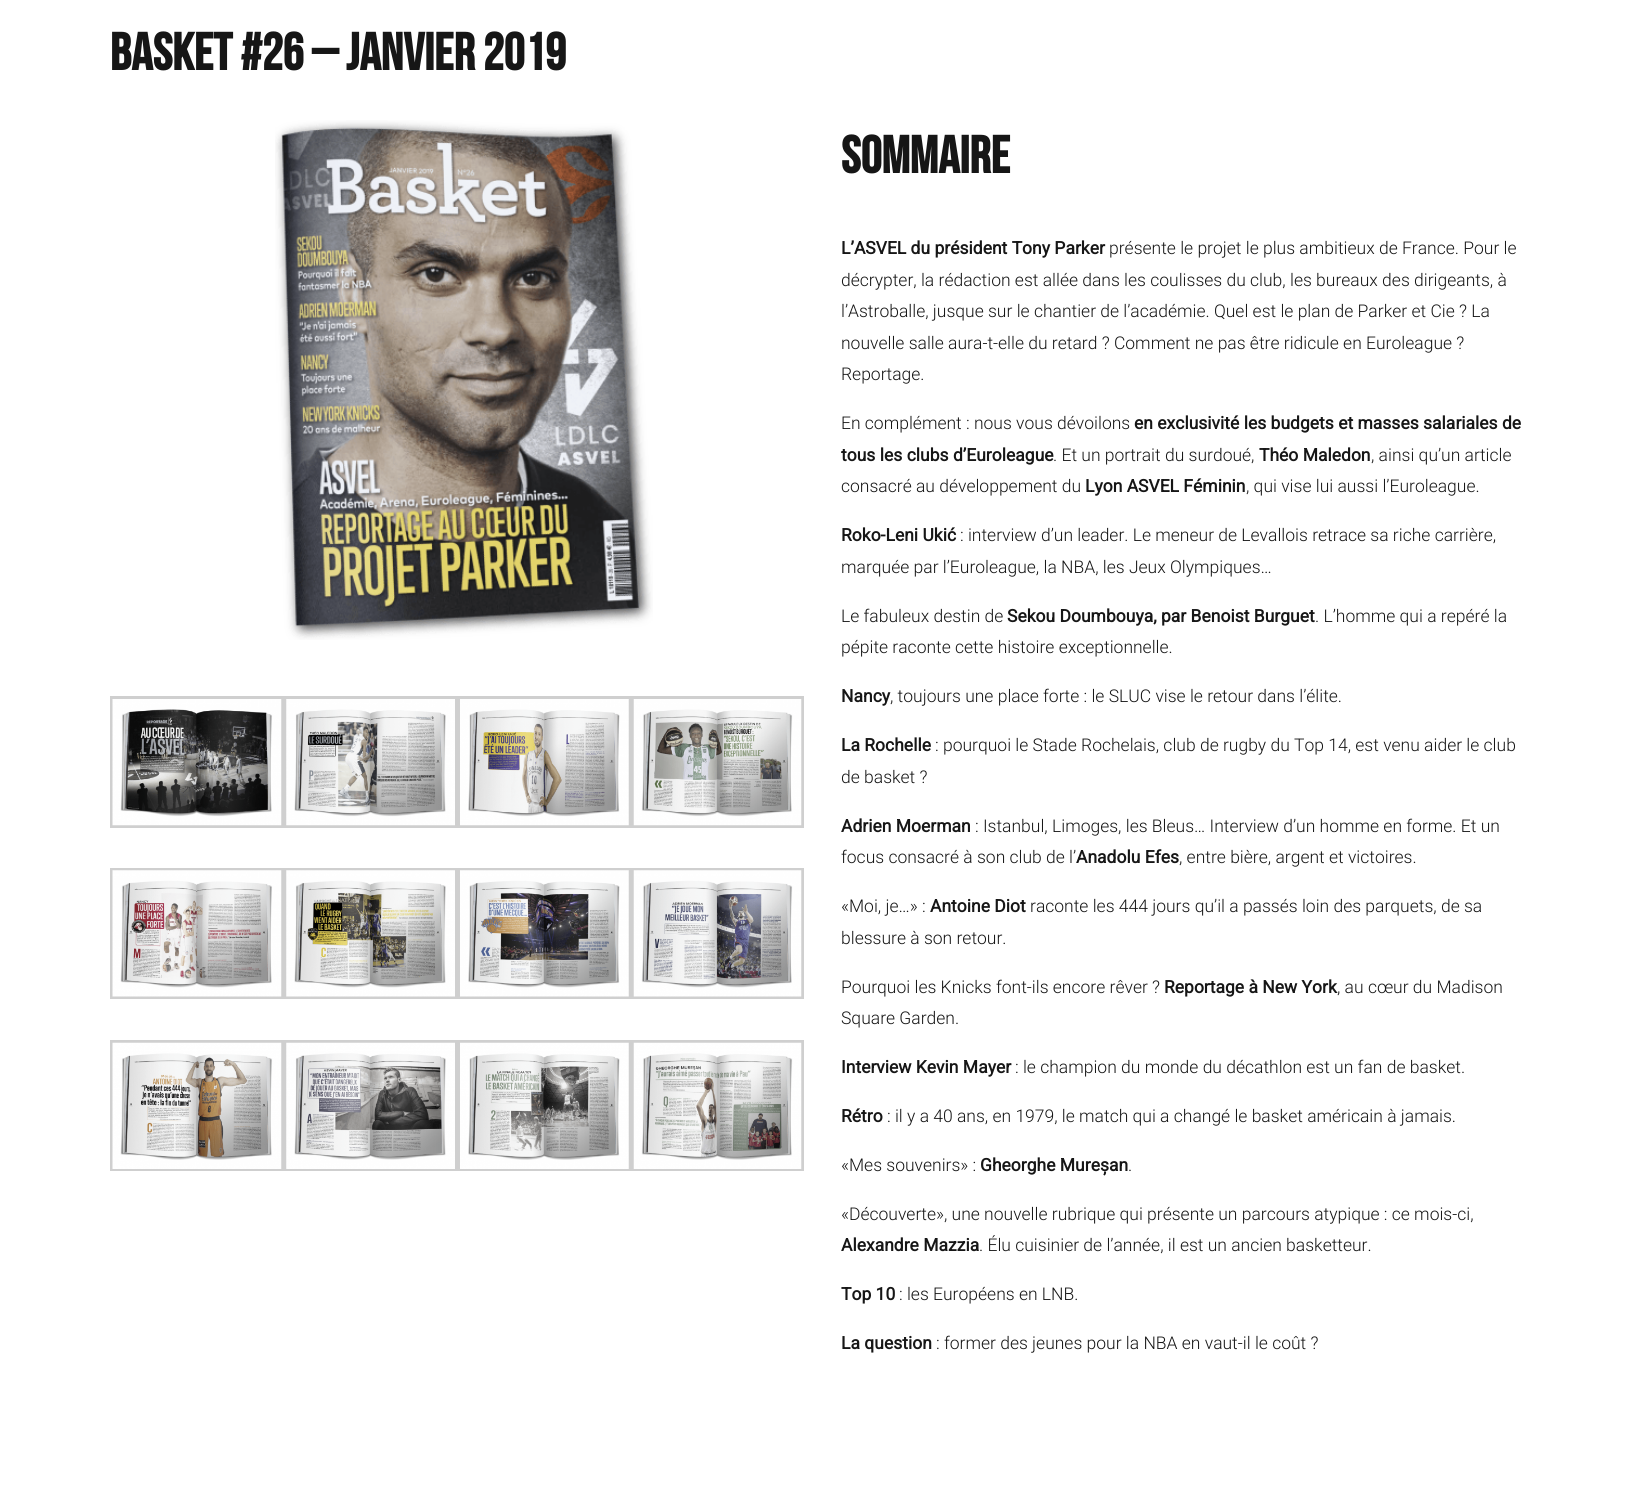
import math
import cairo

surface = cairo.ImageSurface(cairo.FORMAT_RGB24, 1644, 1499)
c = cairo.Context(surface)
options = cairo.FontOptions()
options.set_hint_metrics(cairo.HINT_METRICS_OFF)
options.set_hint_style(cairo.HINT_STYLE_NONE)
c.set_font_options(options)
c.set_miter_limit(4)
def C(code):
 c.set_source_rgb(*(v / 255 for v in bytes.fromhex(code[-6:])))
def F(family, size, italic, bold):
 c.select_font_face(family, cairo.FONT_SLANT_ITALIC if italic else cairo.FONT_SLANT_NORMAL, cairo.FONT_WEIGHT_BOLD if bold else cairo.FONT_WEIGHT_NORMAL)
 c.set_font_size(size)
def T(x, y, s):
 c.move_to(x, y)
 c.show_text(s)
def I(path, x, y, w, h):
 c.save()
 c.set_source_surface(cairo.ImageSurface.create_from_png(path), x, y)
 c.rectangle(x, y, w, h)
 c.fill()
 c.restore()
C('ffffff')
c.paint()
F('Bebas Neue',52.5,0,1)
C('161616')
T(110,70,'Basket #26 – Janvier 2019')
I('1.png',275,120,378,520)
c.rectangle(111.5,697.5,171,129)
C('cfcfcf')
c.set_line_width(3)
c.stroke()
I('2.png',112,699,170,127)
c.rectangle(285.5,697.5,171,129)
c.stroke()
I('3.png',286,699,169,127)
c.rectangle(459.5,697.5,170,129)
c.stroke()
I('4.png',460,699,169,127)
c.rectangle(632.5,697.5,170,129)
c.stroke()
I('5.png',633,699,169,127)
c.rectangle(111.5,869.5,171,128)
c.stroke()
I('6.png',112,870,170,127)
c.rectangle(285.5,869.5,171,128)
c.stroke()
I('7.png',286,870,169,127)
c.rectangle(459.5,869.5,170,128)
c.stroke()
I('8.png',460,870,169,127)
c.rectangle(632.5,869.5,170,128)
c.stroke()
I('9.png',633,870,169,127)
c.rectangle(111.5,1041.5,171,128)
c.stroke()
I('10.png',112,1042,170,127)
c.rectangle(285.5,1041.5,171,128)
c.stroke()
I('11.png',286,1042,169,127)
c.rectangle(459.5,1041.5,170,128)
c.stroke()
I('12.png',460,1042,169,127)
c.rectangle(632.5,1041.5,170,128)
c.stroke()
I('13.png',633,1042,169,127)
C('161616')
T(841,173,'SOMMAIRE')
F('Roboto',17.5,0,1)
T(841,254,'L’ASVEL du président Tony Parker')
F('Roboto Light',17.5,0,0)
T(1109,254,'présente le projet le plus ambitieux de France. Pour le')
T(841,286,'décrypter, la rédaction est allée dans les coulisses du club, les bureaux des dirigeants, à')
T(841,317,'l’Astroballe, jusque sur le chantier de l’académie. Quel est le plan de Parker et Cie ? La')
T(841,349,'nouvelle salle aura-t-elle du retard ? Comment ne pas être ridicule en Euroleague ?')
T(841,380,'Reportage.')
T(841,429,'En complément : nous vous dévoilons')
F('Roboto',17.5,0,1)
T(1134,429,'en exclusivité les budgets et masses salariales de')
T(841,461,'tous les clubs d’Euroleague')
F('Roboto Light',17.5,0,0)
T(1053,461,'. Et un portrait du surdoué,')
F('Roboto',17.5,0,1)
T(1259,461,'Théo Maledon')
F('Roboto Light',17.5,0,0)
T(1371,461,', ainsi qu’un article')
T(841,492,'consacré au développement du')
F('Roboto',17.5,0,1)
T(1085,492,'Lyon ASVEL Féminin')
F('Roboto Light',17.5,0,0)
T(1246,492,', qui vise lui aussi l’Euroleague.')
F('Roboto',17.5,0,1)
T(841,541,'Roko-Leni Ukić')
F('Roboto Light',17.5,0,0)
T(960,541,': interview d’un leader. Le meneur de Levallois retrace sa riche carrière,')
T(841,573,'marquée par l’Euroleague, la NBA, les Jeux Olympiques…')
T(841,622,'Le fabuleux destin de')
F('Roboto',17.5,0,1)
T(1007,622,'Sekou Doumbouya, par Benoist Burguet')
F('Roboto Light',17.5,0,0)
T(1315,622,'. L’homme qui a repéré la')
T(841,653,'pépite raconte cette histoire exceptionnelle.')
F('Roboto',17.5,0,1)
T(841,702,'Nancy')
F('Roboto Light',17.5,0,0)
T(890,702,', toujours une place forte : le SLUC vise le retour dans l’élite.')
F('Roboto',17.5,0,1)
T(841,751,'La Rochelle')
F('Roboto Light',17.5,0,0)
T(935,751,': pourquoi le Stade Rochelais, club de rugby du Top 14, est venu aider le club')
T(841,783,'de basket ?')
F('Roboto',17.5,0,1)
T(841,832,'Adrien Moerman')
F('Roboto Light',17.5,0,0)
T(975,832,': Istanbul, Limoges, les Bleus… Interview d’un homme en forme. Et un')
T(841,863,'focus consacré à son club de l’')
F('Roboto',17.5,0,1)
T(1076,863,'Anadolu Efes')
F('Roboto Light',17.5,0,0)
T(1179,863,', entre bière, argent et victoires.')
T(841,912,'«Moi, je…» :')
F('Roboto',17.5,0,1)
T(930,912,'Antoine Diot')
F('Roboto Light',17.5,0,0)
T(1030,912,'raconte les 444 jours qu’il a passés loin des parquets, de sa')
T(841,944,'blessure à son retour.')
T(841,993,'Pourquoi les Knicks font-ils encore rêver ?')
F('Roboto',17.5,0,1)
T(1164,993,'Reportage à New York')
F('Roboto Light',17.5,0,0)
T(1337,993,', au cœur du Madison')
T(841,1024,'Square Garden.')
F('Roboto',17.5,0,1)
T(841,1073,'Interview Kevin Mayer')
F('Roboto Light',17.5,0,0)
T(1015,1073,': le champion du monde du décathlon est un fan de basket.')
F('Roboto',17.5,0,1)
T(841,1122,'Rétro')
F('Roboto Light',17.5,0,0)
T(887,1122,': il y a 40 ans, en 1979, le match qui a changé le basket américain à jamais.')
T(841,1171,'«Mes souvenirs» :')
F('Roboto',17.5,0,1)
T(980,1171,'Gheorghe Mureșan')
F('Roboto Light',17.5,0,0)
T(1128,1171,'.')
T(841,1220,'«Découverte», une nouvelle rubrique qui présente un parcours atypique : ce mois-ci,')
F('Roboto',17.5,0,1)
T(841,1251,'Alexandre Mazzia')
F('Roboto Light',17.5,0,0)
T(979,1251,'. Élu cuisinier de l’année, il est un ancien basketteur.')
F('Roboto',17.5,0,1)
T(841,1300,'Top 10')
F('Roboto Light',17.5,0,0)
T(899,1300,': les Européens en LNB.')
F('Roboto',17.5,0,1)
T(841,1349,'La question')
F('Roboto Light',17.5,0,0)
T(936,1349,': former des jeunes pour la NBA en vaut-il le coût ?')
surface.write_to_png('o.png')
